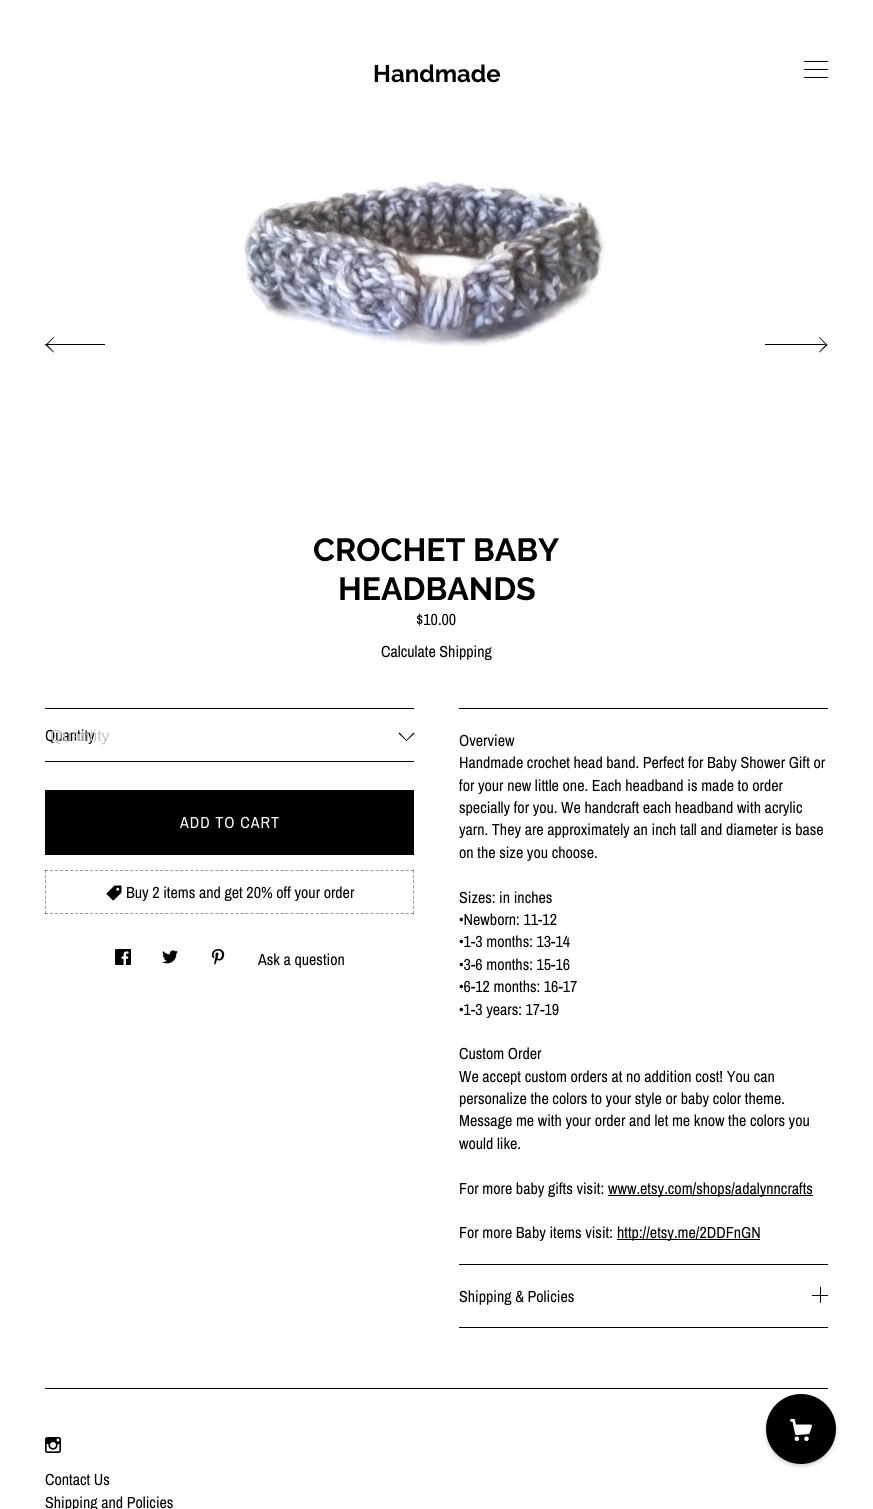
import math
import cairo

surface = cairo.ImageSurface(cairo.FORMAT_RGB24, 873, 1509)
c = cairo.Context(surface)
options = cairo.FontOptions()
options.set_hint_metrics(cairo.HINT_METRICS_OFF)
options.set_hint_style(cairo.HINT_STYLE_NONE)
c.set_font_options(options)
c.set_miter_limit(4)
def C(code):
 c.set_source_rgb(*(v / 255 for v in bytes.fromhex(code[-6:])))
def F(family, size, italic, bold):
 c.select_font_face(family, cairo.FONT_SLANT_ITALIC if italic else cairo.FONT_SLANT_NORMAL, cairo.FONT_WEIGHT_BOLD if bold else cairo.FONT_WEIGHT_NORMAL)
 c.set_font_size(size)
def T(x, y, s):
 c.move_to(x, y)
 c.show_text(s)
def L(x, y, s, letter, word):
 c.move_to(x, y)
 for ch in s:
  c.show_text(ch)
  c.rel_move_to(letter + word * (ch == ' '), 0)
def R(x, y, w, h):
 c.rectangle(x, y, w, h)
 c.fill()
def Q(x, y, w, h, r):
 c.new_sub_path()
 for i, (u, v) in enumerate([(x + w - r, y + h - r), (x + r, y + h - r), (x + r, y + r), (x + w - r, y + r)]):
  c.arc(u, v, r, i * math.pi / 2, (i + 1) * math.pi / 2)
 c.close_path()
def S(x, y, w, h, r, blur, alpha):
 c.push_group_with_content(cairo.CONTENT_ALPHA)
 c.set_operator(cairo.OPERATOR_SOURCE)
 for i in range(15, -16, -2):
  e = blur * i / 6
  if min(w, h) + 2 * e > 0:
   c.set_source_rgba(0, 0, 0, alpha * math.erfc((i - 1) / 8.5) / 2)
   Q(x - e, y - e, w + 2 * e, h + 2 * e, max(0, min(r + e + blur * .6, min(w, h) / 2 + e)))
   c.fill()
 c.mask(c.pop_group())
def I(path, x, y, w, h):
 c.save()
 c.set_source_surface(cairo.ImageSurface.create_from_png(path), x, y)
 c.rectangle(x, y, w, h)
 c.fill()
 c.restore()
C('ffffff')
c.paint()
F('Raleway',24,0,1)
C('000000')
T(373,82,'Handmade')
Q(804,61,24,1,.5)
c.fill()
Q(804,69,24,1,.5)
c.fill()
Q(804,77,24,1,.5)
c.fill()
I('1.png',244,180,363,169)
c.new_path()
c.move_to(54,352)
c.line_to(53.5,352.5)
c.line_to(45.5,345)
c.line_to(46.5,344)
c.close_path()
c.fill()
c.new_path()
c.move_to(54,337.5)
c.line_to(46.5,345.5)
c.line_to(45.5,345)
c.line_to(53.5,337)
c.close_path()
c.fill()
R(45,344,60,1)
c.new_path()
c.move_to(819,337.5)
c.line_to(819.5,337)
c.line_to(827.5,345)
c.line_to(826.5,345.5)
c.close_path()
c.fill()
c.new_path()
c.move_to(819,352)
c.line_to(826.5,344)
c.line_to(827.5,345)
c.line_to(819.5,352.5)
c.close_path()
c.fill()
R(765,344,60,1)
F('Raleway',32,0,1)
T(313,561,'CROCHET BABY')
T(338,600,'HEADBANDS')
F('Archivo Narrow',16,0,0)
T(416,625,'$10.00')
T(381,657,'Calculate Shipping')
R(45,708,369,1)
R(45,761,369,1)
T(45,741,'Quantity')
F('Liberation Sans',16,0,0)
C('c2c2c2')
T(50,741,'Quantity')
C('000000')
c.new_path()
c.move_to(413.5,732.5)
c.line_to(414.5,733.5)
c.line_to(406.5,741)
c.line_to(406,740.5)
c.close_path()
c.fill()
c.new_path()
c.move_to(399.5,732.5)
c.line_to(407,740.5)
c.line_to(406.5,741)
c.line_to(398.5,733.5)
c.close_path()
c.fill()
R(45,790,369,65)
F('Archivo Narrow',16,0,0)
C('ffffff')
L(180,828,'ADD TO CART',1,0)
c.new_path()
c.move_to(45,870.5)
c.line_to(414,870.5)
C('999999')
c.set_line_width(1)
c.set_dash([3,2.01])
c.stroke()
c.new_path()
c.move_to(413.5,870)
c.line_to(413.5,914)
c.set_source_rgba(0,0,0,0.4)
c.set_dash([3,2.12])
c.stroke()
c.new_path()
c.move_to(45,913.5)
c.line_to(414,913.5)
c.set_dash([3,2.01])
c.stroke()
c.new_path()
c.move_to(45.5,870)
c.line_to(45.5,914)
c.set_dash([3,2.12])
c.stroke()
I('2.png',106,885,16,16)
C('000000')
T(126,898,'Buy 2 items and get 20% off your order')
I('3.png',115,949,16,16)
I('4.png',162,950,16,14)
I('5.png',211,949,14,16)
T(258,965,'Ask a question')
R(459,708,369,1)
R(459,1264,369,1)
T(459,746,'Overview')
T(459,768,'Handmade crochet head band. Perfect for Baby Shower Gift or')
T(459,791,'for your new little one. Each headband is made to order')
T(459,813,'specially for you. We handcraft each headband with acrylic')
T(459,835,'yarn. They are approximately an inch tall and diameter is base')
T(459,858,'on the size you choose.')
T(459,903,'Sizes: in inches')
T(459,925,'•Newborn: 11-12')
T(459,947,'•1-3 months: 13-14')
T(459,970,'•3-6 months: 15-16')
T(459,992,'•6-12 months: 16-17')
T(459,1015,'•1-3 years: 17-19')
T(459,1059,'Custom Order')
T(459,1082,'We accept custom orders at no addition cost! You can')
T(459,1104,'personalize the colors to your style or baby color theme.')
T(459,1126,'Message me with your order and let me know the colors you')
T(459,1149,'would like.')
T(459,1194,'For more baby gifts visit:')
R(608,1195,205,1)
T(608,1194,'www.etsy.com/shops/adalynncrafts')
T(459,1238,'For more Baby items visit:')
R(617,1239,143,1)
T(617,1238,'http://etsy.me/2DDFnGN')
R(459,1327,369,1)
T(459,1302,'Shipping & Policies')
R(812,1295,16,1)
R(820,1287,1,16)
R(45,1388,783,1)
C('000000')
S(766,1396,70,70,35,2,.2)
C('000000')
c.arc(801,1429,35,0,2 * math.pi)
c.fill()
I('6.png',790,1419,22,22)
I('7.png',45,1437,16,16)
T(45,1485,'Contact Us')
T(45,1508,'Shipping and Policies')
surface.write_to_png('o.png')
